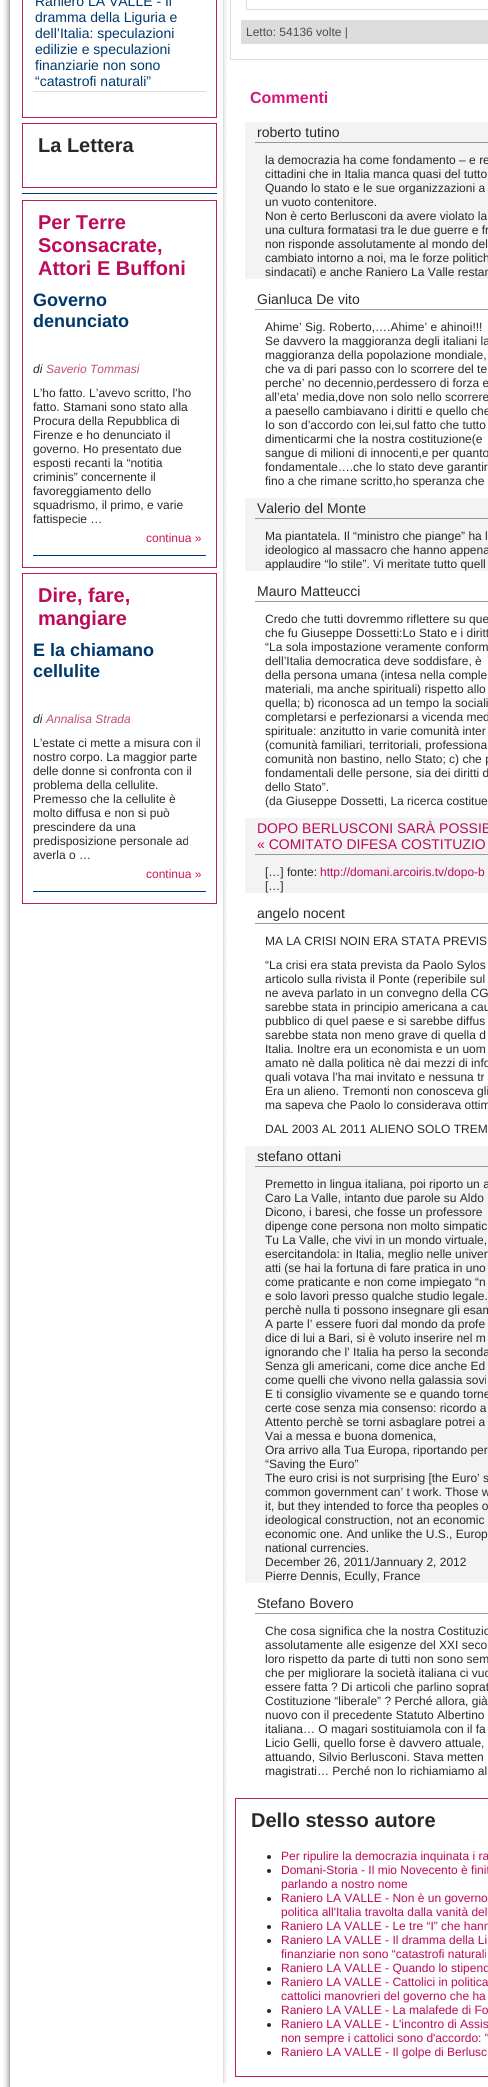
import math
import cairo

surface = cairo.ImageSurface(cairo.FORMAT_RGB24, 488, 2087)
c = cairo.Context(surface)
options = cairo.FontOptions()
options.set_hint_metrics(cairo.HINT_METRICS_OFF)
options.set_hint_style(cairo.HINT_STYLE_NONE)
c.set_font_options(options)
c.set_miter_limit(4)
def C(code):
 c.set_source_rgb(*(v / 255 for v in bytes.fromhex(code[-6:])))
def F(family, size, italic, bold):
 c.select_font_face(family, cairo.FONT_SLANT_ITALIC if italic else cairo.FONT_SLANT_NORMAL, cairo.FONT_WEIGHT_BOLD if bold else cairo.FONT_WEIGHT_NORMAL)
 c.set_font_size(size)
def T(x, y, s):
 c.move_to(x, y)
 c.show_text(s)
def R(x, y, w, h):
 c.rectangle(x, y, w, h)
 c.fill()
def I(path, x, y, w, h):
 c.save()
 c.set_source_surface(cairo.ImageSurface.create_from_png(path), x, y)
 c.rectangle(x, y, w, h)
 c.fill()
 c.restore()
C('ffffff')
c.paint()
I('1.png',3,0,7,2087)
I('2.png',223,0,4,2083)
c.rectangle(22.5,-.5,194,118)
C('ba205a')
c.set_line_width(1)
c.stroke()
C('dddddd')
R(33,91,173,1)
F('Liberation Sans',14,0,0)
C('00386b')
T(35,6,'Raniero LA VALLE - Il')
T(35,22,'dramma della Liguria e')
T(35,38,'dell’Italia: speculazioni')
T(35,54,'edilizie e speculazioni')
T(35,70,'finanziarie non sono')
T(35,86,'“catastrofi naturali”')
c.rectangle(22.5,123.5,194,64)
C('ba205a')
c.stroke()
F('Liberation Sans',20,0,1)
C('292929')
T(38,152,'La Lettera')
C('00386b')
R(22,193,195,1)
c.rectangle(22.5,200.5,194,367)
C('ba205a')
c.stroke()
C('bb0b5a')
T(38,229,'Per Terre')
T(38,252,'Sconsacrate,')
T(38,275,'Attori E Buffoni')
F('Liberation Sans',18,0,1)
C('00386b')
T(33,306,'Governo')
T(33,327,'denunciato')
F('Liberation Sans',12,1,0)
C('292929')
T(33,373,'di')
C('c1516b')
T(46,373,'Saverio Tommasi')
F('Liberation Sans',12,0,0)
C('292929')
T(33,397,'L’ho fatto. L’avevo scritto, l’ho')
T(33,411,'fatto. Stamani sono stato alla')
T(33,425,'Procura della Repubblica di')
T(33,439,'Firenze e ho denunciato il')
T(33,453,'governo. Ho presentato due')
T(33,467,'esposti recanti la “notitia')
T(33,481,'criminis” concernente il')
T(33,495,'favoreggiamento dello')
T(33,509,'squadrismo, il primo, e varie')
T(33,523,'fattispecie …')
C('d01653')
T(146,542,'continua »')
C('00386b')
R(33,555,173,1)
c.rectangle(22.5,573.5,194,330)
C('ba205a')
c.stroke()
F('Liberation Sans',20,0,1)
C('bb0b5a')
T(38,602,'Dire, fare,')
T(38,625,'mangiare')
F('Liberation Sans',18,0,1)
C('00386b')
T(33,656,'E la chiamano')
T(33,677,'cellulite')
F('Liberation Sans',12,1,0)
C('292929')
T(33,723,'di')
C('c1516b')
T(46,723,'Annalisa Strada')
F('Liberation Sans',12,0,0)
C('292929')
T(33,747,'L’estate ci mette a misura con il')
T(33,761,'nostro corpo. La maggior parte')
T(33,775,'delle donne si confronta con il')
T(33,789,'problema della cellulite.')
T(33,803,'Premesso che la cellulite è')
T(33,817,'molto diffusa e non si può')
T(33,831,'prescindere da una')
T(33,845,'predisposizione personale ad')
T(33,859,'averla o …')
C('d01653')
T(146,878,'continua »')
C('00386b')
R(33,891,173,1)
c.rectangle(230.5,-.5,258,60)
C('dddddd')
c.stroke()
c.rectangle(246.5,-.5,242,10)
c.stroke()
C('dbdcdd')
R(241,20,247,24)
C('4d4d4d')
T(246,36,'Letto: 54136 volte |')
F('Liberation Sans',16,0,1)
C('d11978')
T(250,103,'Commenti')
C('f3f3f3')
R(245,122,243,157)
C('989898')
R(255,142,233,1)
F('Liberation Sans',14,0,0)
C('292929')
T(257,137,'roberto tutino')
F('Liberation Sans',12,0,0)
T(265,164,'la democrazia ha come fondamento – e re')
T(265,178,'cittadini che in Italia manca quasi del tutto')
T(265,192,'Quando lo stato e le sue organizzazioni a')
T(265,206,'un vuoto contenitore.')
T(265,220,'Non è certo Berlusconi da avere violato la')
T(265,234,'una cultura formatasi tra le due guerre e fr')
T(265,248,'non risponde assolutamente al mondo del')
T(265,262,'cambiato intorno a noi, ma le forze politich')
T(265,276,'sindacati) e anche Raniero La Valle restan')
C('989898')
R(255,309,233,1)
F('Liberation Sans',14,0,0)
C('292929')
T(257,304,'Gianluca De vito')
F('Liberation Sans',12,0,0)
T(265,331,'Ahime’ Sig. Roberto,….Ahime’ e ahinoi!!!')
T(265,345,'Se davvero la maggioranza degli italiani la')
T(265,359,'maggioranza della popolazione mondiale,')
T(265,373,'che va di pari passo con lo scorrere del te')
T(265,387,'perche’ no decennio,perdessero di forza e')
T(265,401,'all’eta’ media,dove non solo nello scorrere')
T(265,415,'a paesello cambiavano i diritti e quello che')
T(265,429,'Io son d’accordo con lei,sul fatto che tutto')
T(265,443,'dimenticarmi che la nostra costituzione(e')
T(265,457,'sangue di milioni di innocenti,e per quanto')
T(265,471,'fondamentale….che lo stato deve garantir')
T(265,485,'fino a che rimane scritto,ho speranza che')
C('f3f3f3')
R(245,498,243,73)
C('989898')
R(255,518,233,1)
F('Liberation Sans',14,0,0)
C('292929')
T(257,513,'Valerio del Monte')
F('Liberation Sans',12,0,0)
T(265,540,'Ma piantatela. Il “ministro che piange” ha l')
T(265,554,'ideologico al massacro che hanno appena')
T(265,568,'applaudire “lo stile”. Vi meritate tutto quell')
C('989898')
R(255,601,233,1)
F('Liberation Sans',14,0,0)
C('292929')
T(257,596,'Mauro Matteucci')
F('Liberation Sans',12,0,0)
T(265,623,'Credo che tutti dovremmo riflettere su que')
T(265,637,'che fu Giuseppe Dossetti:Lo Stato e i diritt')
T(265,651,'“La sola impostazione veramente conform')
T(265,665,'dell’Italia democratica deve soddisfare, è')
T(265,679,'della persona umana (intesa nella comple')
T(265,693,'materiali, ma anche spirituali) rispetto allo')
T(265,707,'quella; b) riconosca ad un tempo la sociali')
T(265,721,'completarsi e perfezionarsi a vicenda med')
T(265,735,'spirituale: anzitutto in varie comunità inter')
T(265,749,'(comunità familiari, territoriali, professiona')
T(265,763,'comunità non bastino, nello Stato; c) che p')
T(265,777,'fondamentali delle persone, sia dei diritti d')
T(265,791,'dello Stato”.')
T(265,805,'(da Giuseppe Dossetti, La ricerca costitue')
C('f3f3f3')
R(245,818,243,75)
C('989898')
R(255,854,233,1)
F('Liberation Sans',14,0,0)
C('bb0b5a')
T(257,833,'DOPO BERLUSCONI SARÀ POSSIB')
T(257,849,'« COMITATO DIFESA COSTITUZIO')
F('Liberation Sans',12,0,0)
C('292929')
T(265,876,'[…] fonte:')
C('bb0b5a')
T(320,876,'http://domani.arcoiris.tv/dopo-b')
C('292929')
T(265,890,'[…]')
C('989898')
R(255,923,233,1)
F('Liberation Sans',14,0,0)
C('292929')
T(257,918,'angelo nocent')
F('Liberation Sans',12,0,0)
T(265,945,'MA LA CRISI NOIN ERA STATA PREVIS')
T(265,969,'“La crisi era stata prevista da Paolo Sylos')
T(265,983,'articolo sulla rivista il Ponte (reperibile sul')
T(265,997,'ne aveva parlato in un convegno della CG')
T(265,1011,'sarebbe stata in principio americana a cau')
T(265,1025,'pubblico di quel paese e si sarebbe diffus')
T(265,1039,'sarebbe stata non meno grave di quella d')
T(265,1053,'Italia. Inoltre era un economista e un uom')
T(265,1067,'amato nè dalla politica nè dai mezzi di info')
T(265,1081,'quali votava l’ha mai invitato e nessuna tr')
T(265,1095,'Era un alieno. Tremonti non conosceva gli')
T(265,1109,'ma sapeva che Paolo lo considerava ottim')
T(265,1133,'DAL 2003 AL 2011 ALIENO SOLO TREM')
C('f3f3f3')
R(245,1146,243,437)
C('989898')
R(255,1166,233,1)
F('Liberation Sans',14,0,0)
C('292929')
T(257,1161,'stefano ottani')
F('Liberation Sans',12,0,0)
T(265,1188,'Premetto in lingua italiana, poi riporto un a')
T(265,1202,'Caro La Valle, intanto due parole su Aldo')
T(265,1216,'Dicono, i baresi, che fosse un professore')
T(265,1230,'dipenge cone persona non molto simpatic')
T(265,1244,'Tu La Valle, che vivi in un mondo virtuale,')
T(265,1258,'esercitandola: in Italia, meglio nelle univer')
T(265,1272,'atti (se hai la fortuna di fare pratica in uno')
T(265,1286,'come praticante e non come impiegato “n')
T(265,1300,'e solo lavori presso qualche studio legale.')
T(265,1314,'perchè nulla ti possono insegnare gli esam')
T(265,1328,'A parte l’ essere fuori dal mondo da profe')
T(265,1342,'dice di lui a Bari, si è voluto inserire nel m')
T(265,1356,'ignorando che l’ Italia ha perso la seconda')
T(265,1370,'Senza gli americani, come dice anche Ed')
T(265,1384,'come quelli che vivono nella galassia sovi')
T(265,1398,'E ti consiglio vivamente se e quando torne')
T(265,1412,'certe cose senza mia consenso: ricordo a')
T(265,1426,'Attento perchè se torni asbaglare potrei a')
T(265,1440,'Vai a messa e buona domenica,')
T(265,1454,'Ora arrivo alla Tua Europa, riportando per')
T(265,1468,'“Saving the Euro”')
T(265,1482,'The euro crisi is not surprising [the Euro’ s')
T(265,1496,'common government can’ t work. Those w')
T(265,1510,'it, but they intended to force tha peoples o')
T(265,1524,'ideological construction, not an economic')
T(265,1538,'economic one. And unlike the U.S., Europ')
T(265,1552,'national currencies.')
T(265,1566,'December 26, 2011/Jannuary 2, 2012')
T(265,1580,'Pierre Dennis, Ecully, France')
C('989898')
R(255,1613,233,1)
F('Liberation Sans',14,0,0)
C('292929')
T(257,1608,'Stefano Bovero')
F('Liberation Sans',12,0,0)
T(265,1635,'Che cosa significa che la nostra Costituzio')
T(265,1649,'assolutamente alle esigenze del XXI seco')
T(265,1663,'loro rispetto da parte di tutti non sono sem')
T(265,1677,'che per migliorare la società italiana ci vuo')
T(265,1691,'essere fatta ? Di articoli che parlino soprat')
T(265,1705,'Costituzione “liberale” ? Perché allora, già')
T(265,1719,'nuovo con il precedente Statuto Albertino')
T(265,1733,'italiana… O magari sostituiamola con il fa')
T(265,1747,'Licio Gelli, quello forse è davvero attuale,')
T(265,1761,'attuando, Silvio Berlusconi. Stava metten')
T(265,1775,'magistrati… Perché non lo richiamiamo al')
c.rectangle(235.5,1798.5,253,278)
C('ba205a')
c.stroke()
F('Liberation Sans',20,0,1)
C('292929')
T(251,1827,'Dello stesso autore')
c.new_path()
c.arc(269,1857,2,0,2 * math.pi)
c.fill()
F('Liberation Sans',12,0,0)
C('bb0b5a')
T(281,1860,'Per ripulire la democrazia inquinata i ra')
C('292929')
c.new_path()
c.arc(269,1871,2,0,2 * math.pi)
c.fill()
C('bb0b5a')
T(281,1874,'Domani-Storia - Il mio Novecento è finit')
T(281,1888,'parlando a nostro nome')
C('292929')
c.new_path()
c.arc(269,1899,2,0,2 * math.pi)
c.fill()
C('bb0b5a')
T(281,1902,'Raniero LA VALLE - Non è un governo')
T(281,1916,'politica all\'Italia travolta dalla vanità del')
C('292929')
c.new_path()
c.arc(269,1927,2,0,2 * math.pi)
c.fill()
C('bb0b5a')
T(281,1930,'Raniero LA VALLE - Le tre “I” che hann')
C('292929')
c.new_path()
c.arc(269,1941,2,0,2 * math.pi)
c.fill()
C('bb0b5a')
T(281,1944,'Raniero LA VALLE - Il dramma della Li')
T(281,1958,'finanziarie non sono “catastrofi naturali')
C('292929')
c.new_path()
c.arc(269,1969,2,0,2 * math.pi)
c.fill()
C('bb0b5a')
T(281,1972,'Raniero LA VALLE - Quando lo stipend')
C('292929')
c.new_path()
c.arc(269,1983,2,0,2 * math.pi)
c.fill()
C('bb0b5a')
T(281,1986,'Raniero LA VALLE - Cattolici in politica')
T(281,2000,'cattolici manovrieri del governo che ha')
C('292929')
c.new_path()
c.arc(269,2011,2,0,2 * math.pi)
c.fill()
C('bb0b5a')
T(281,2014,'Raniero LA VALLE - La malafede di Fo')
C('292929')
c.new_path()
c.arc(269,2025,2,0,2 * math.pi)
c.fill()
C('bb0b5a')
T(281,2028,'Raniero LA VALLE - L\'incontro di Assis')
T(281,2042,'non sempre i cattolici sono d\'accordo: "')
C('292929')
c.new_path()
c.arc(269,2053,2,0,2 * math.pi)
c.fill()
C('bb0b5a')
T(281,2056,'Raniero LA VALLE - Il golpe di Berlusc')
surface.write_to_png('o.png')
